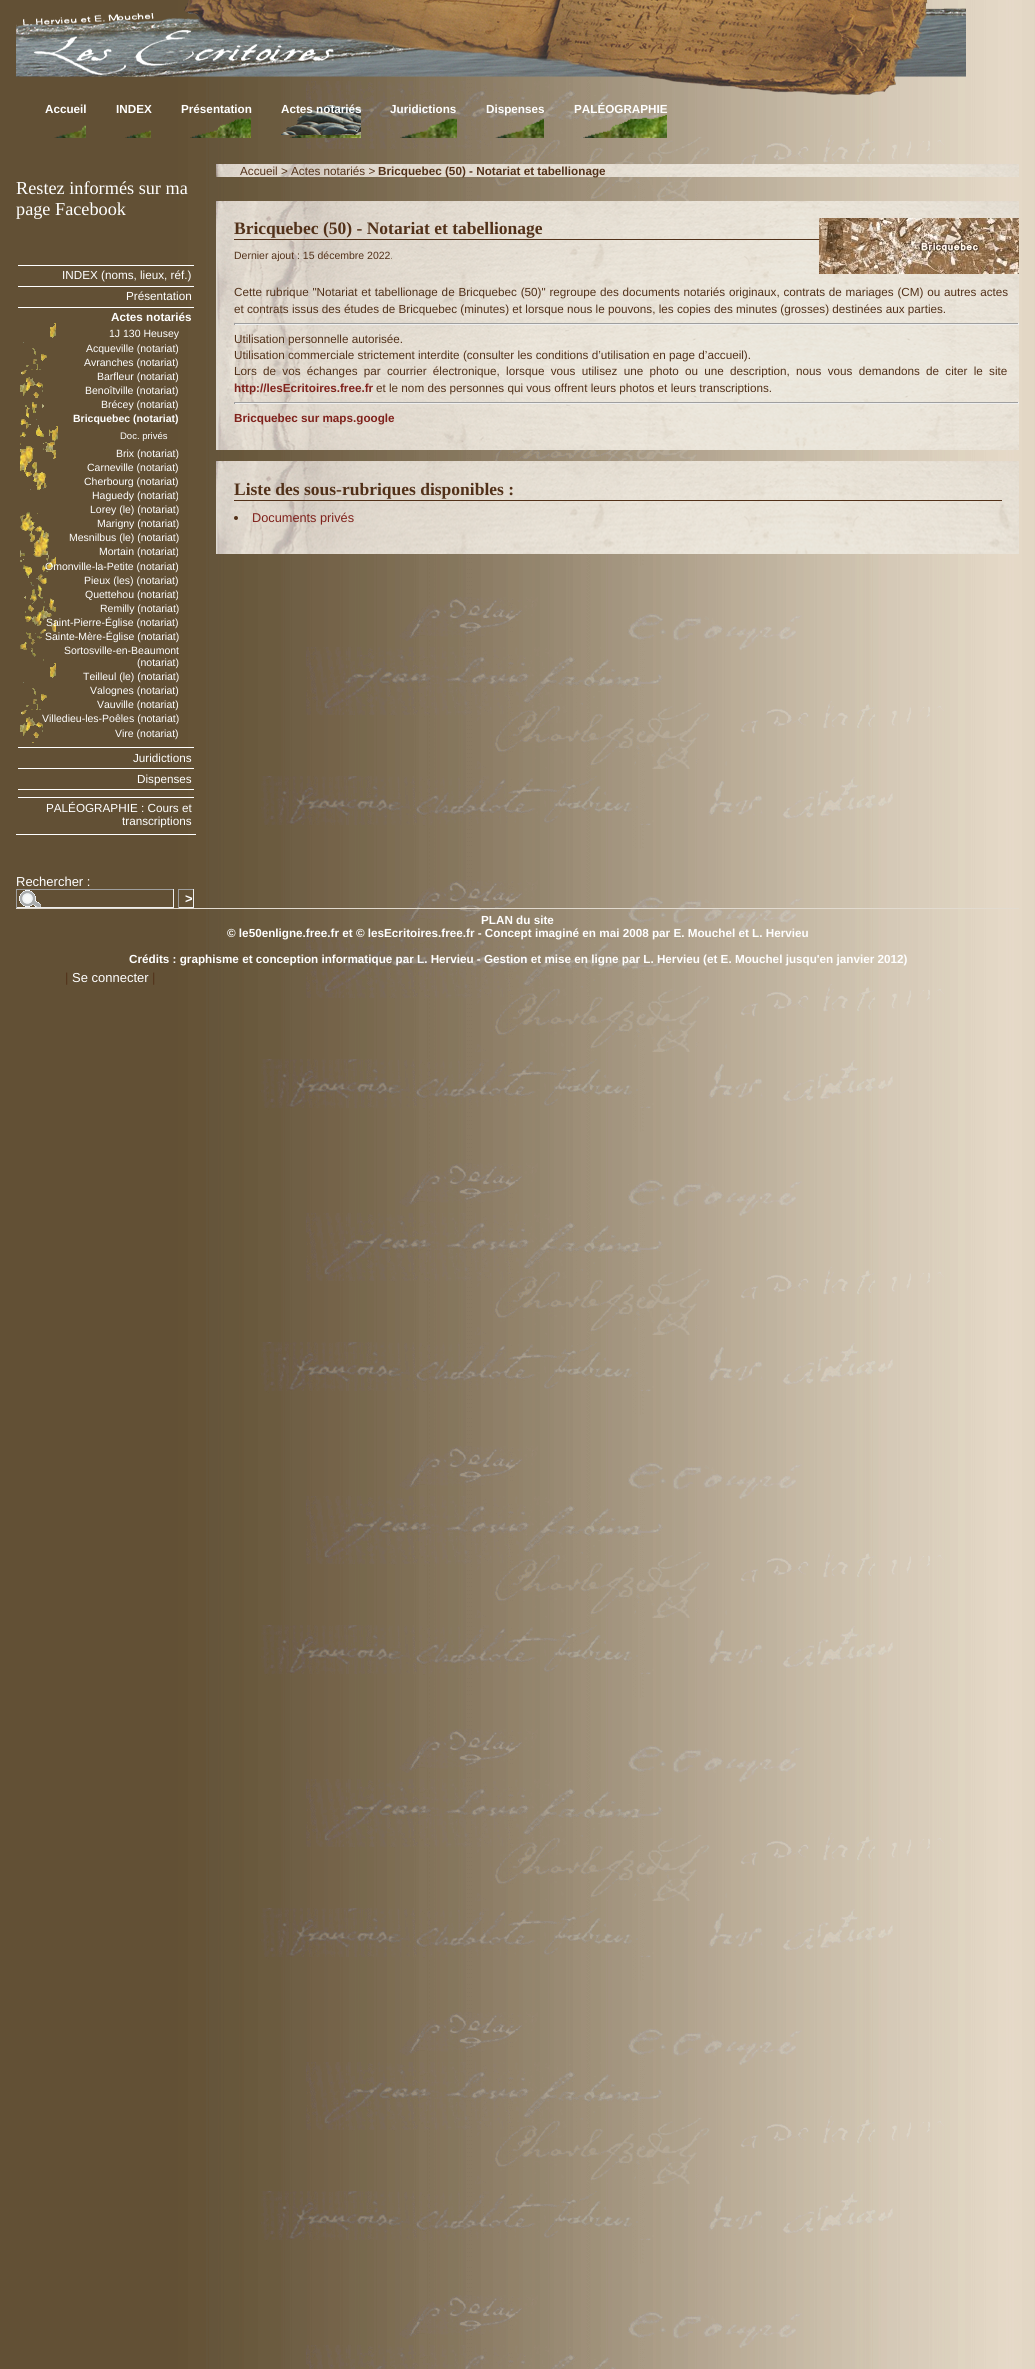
import math
import cairo

surface = cairo.ImageSurface(cairo.FORMAT_RGB24, 1035, 2369)
c = cairo.Context(surface)
options = cairo.FontOptions()
options.set_hint_metrics(cairo.HINT_METRICS_OFF)
options.set_hint_style(cairo.HINT_STYLE_NONE)
c.set_font_options(options)
c.set_miter_limit(4)
def C(code):
 c.set_source_rgb(*(v / 255 for v in bytes.fromhex(code[-6:])))
def F(family, size, italic, bold):
 c.select_font_face(family, cairo.FONT_SLANT_ITALIC if italic else cairo.FONT_SLANT_NORMAL, cairo.FONT_WEIGHT_BOLD if bold else cairo.FONT_WEIGHT_NORMAL)
 c.set_font_size(size)
def T(x, y, s):
 c.move_to(x, y)
 c.show_text(s)
def L(x, y, s, letter, word):
 c.move_to(x, y)
 for ch in s:
  c.show_text(ch)
  c.rel_move_to(letter + word * (ch == ' '), 0)
def R(x, y, w, h):
 c.rectangle(x, y, w, h)
 c.fill()
def I(path, x, y, w, h):
 c.save()
 c.set_source_surface(cairo.ImageSurface.create_from_png(path), x, y)
 c.rectangle(x, y, w, h)
 c.fill()
 c.restore()
C('ffffff')
c.paint()
I('1.png',0,0,1035,2369)
I('2.png',16,0,950,95)
I('3.png',23,13,311,62)
I('4.png',54,125,32,13)
F('Liberation Sans',11.7,0,1)
C('ffffff')
T(45,113,'Accueil')
I('5.png',125,130,26,8)
T(116,113,'INDEX')
I('6.png',190,117,61,21)
T(181,113,'Présentation')
I('7.png',290,135,71,3)
I('8.png',281,105,80,30)
T(281,113,'Actes notariés')
I('9.png',400,118,57,20)
T(390,113,'Juridictions')
I('10.png',495,118,49,20)
T(486,113,'Dispenses')
I('11.png',583,114,84,24)
T(574,113,'PALÉOGRAPHIE')
F('Liberation Serif',18.25,0,0)
T(16,194,'Restez informés sur ma')
T(16,215,'page Facebook')
R(16,834,180,1)
R(18,265,176,1)
F('Liberation Sans',11.7,0,0)
T(62,279,'INDEX (noms, lieux, réf.)')
R(18,286,176,1)
T(126,300,'Présentation')
R(18,307,176,1)
F('Liberation Sans',11.7,0,1)
T(111,321,'Actes notariés')
I('12.png',20,323,36,420)
F('Liberation Sans',10.5,0,0)
T(109,337,'1J 130 Heusey')
T(86,352,'Acqueville (notariat)')
T(84,366,'Avranches (notariat)')
T(97,380,'Barfleur (notariat)')
T(85,394,'Benoîtville (notariat)')
T(101,408,'Brécey (notariat)')
F('Liberation Sans',10.5,0,1)
T(73,422,'Bricquebec (notariat)')
I('13.png',52,426,6,16)
F('Liberation Sans',9.5,0,0)
T(120,439,'Doc. privés')
F('Liberation Sans',10.5,0,0)
T(116,457,'Brix (notariat)')
T(87,471,'Carneville (notariat)')
T(84,485,'Cherbourg (notariat)')
T(92,499,'Haguedy (notariat)')
T(90,513,'Lorey (le) (notariat)')
T(97,527,'Marigny (notariat)')
T(69,541,'Mesnilbus (le) (notariat)')
T(99,555,'Mortain (notariat)')
T(45,570,'Omonville-la-Petite (notariat)')
T(84,584,'Pieux (les) (notariat)')
T(85,598,'Quettehou (notariat)')
T(100,612,'Remilly (notariat)')
T(46,626,'Saint-Pierre-Église (notariat)')
T(45,640,'Sainte-Mère-Église (notariat)')
T(64,654,'Sortosville-en-Beaumont')
T(137,666,'(notariat)')
T(83,680,'Teilleul (le) (notariat)')
T(90,694,'Valognes (notariat)')
T(97,708,'Vauville (notariat)')
T(42,722,'Villedieu-les-Poêles (notariat)')
T(115,737,'Vire (notariat)')
R(18,747,176,1)
F('Liberation Sans',11.7,0,0)
T(133,762,'Juridictions')
R(18,768,176,1)
T(137,783,'Dispenses')
R(18,789,176,1)
R(18,797,176,1)
T(46,812,'PALÉOGRAPHIE : Cours et')
T(122,825,'transcriptions')
F('Liberation Sans',13,0,0)
T(16,886,'Rechercher :')
I('14.png',19,890,22,17)
C('9f9f9f')
R(16,889,158,1)
C('eeeeee')
R(173,889,1,19)
R(16,907,158,1)
C('9f9f9f')
R(16,889,1,19)
R(178,889,16,1)
C('eeeeee')
R(193,889,1,19)
R(178,907,16,1)
C('9f9f9f')
R(178,889,1,19)
F('Liberation Sans',13,0,1)
C('ffffff')
T(185,903,'>')
I('15.png',216,164,803,13)
F('Liberation Sans',11.7,0,0)
C('523119')
T(240,175,'Accueil > Actes notariés >')
F('Liberation Sans',11.7,0,1)
T(378,175,'Bricquebec (50) - Notariat et tabellionage')
C('e2dbd0')
R(216,202,13,248)
I('16.png',216,201,803,249)
C('523119')
R(234,239,585,1)
F('Liberation Serif',17.5,0,1)
T(234,234,'Bricquebec (50) - Notariat et tabellionage')
I('17.png',819,218,200,56)
F('Liberation Sans',10.5,0,0)
T(234,259,'Dernier ajout : 15 décembre 2022.')
F('Liberation Sans',11.7,0,0)
L(234,296,'Cette rubrique "Notariat et tabellionage de Bricquebec (50)" regroupe des documents notariés originaux, contrats de mariages (CM) ou autres actes',0,.5)
T(234,313,'et contrats issus des études de Bricquebec (minutes) et lorsque nous le pouvons, les copies des minutes (grosses) destinées aux parties.')
C('9f9f9f')
R(234,323,785,1)
C('eeeeee')
R(1018,323,1,2)
R(234,324,785,1)
C('9f9f9f')
R(234,323,1,2)
C('523119')
T(234,343,'Utilisation personnelle autorisée.')
T(234,359,'Utilisation commerciale strictement interdite (consulter les conditions d’utilisation en page d’accueil).')
L(234,375,'Lors de vos échanges par courrier électronique, lorsque vous utilisez une photo ou une description, nous vous demandons de citer le site',0,3)
F('Liberation Sans',11.7,0,1)
C('7f211b')
T(234,392,'http://lesEcritoires.free.fr')
F('Liberation Sans',11.7,0,0)
C('523119')
T(376,392,'et le nom des personnes qui vous offrent leurs photos et leurs transcriptions.')
C('9f9f9f')
R(234,402,785,1)
C('eeeeee')
R(1018,402,1,2)
R(234,403,785,1)
C('9f9f9f')
R(234,402,1,2)
F('Liberation Sans',11.7,0,1)
C('7f211b')
T(234,422,'Bricquebec sur maps.google')
C('e2dbd0')
R(216,462,11,92)
I('18.png',216,461,803,93)
C('523119')
R(234,500,768,1)
F('Liberation Serif',17.5,0,1)
T(234,495,'Liste des sous-rubriques disponibles :')
c.new_path()
c.arc(236,518,2,0,2 * math.pi)
c.fill()
F('Liberation Sans',12.75,0,0)
C('7f211b')
T(252,522,'Documents privés')
C('e2dbd0')
R(16,908,1003,1)
F('Liberation Sans',11.7,0,1)
C('ffffff')
T(481,924,'PLAN du site')
T(227,937,'© le50enligne.free.fr et © lesEcritoires.free.fr - Concept imaginé en mai 2008 par E. Mouchel et L. Hervieu')
T(129,963,'Crédits : graphisme et conception informatique par L. Hervieu - Gestion et mise en ligne par L. Hervieu (et E. Mouchel jusqu\'en janvier 2012)')
F('Liberation Sans',13,0,0)
C('523119')
T(65,982,'|')
C('ffffff')
T(72,982,'Se connecter')
C('523119')
T(152,982,'|')
surface.write_to_png('o.png')
